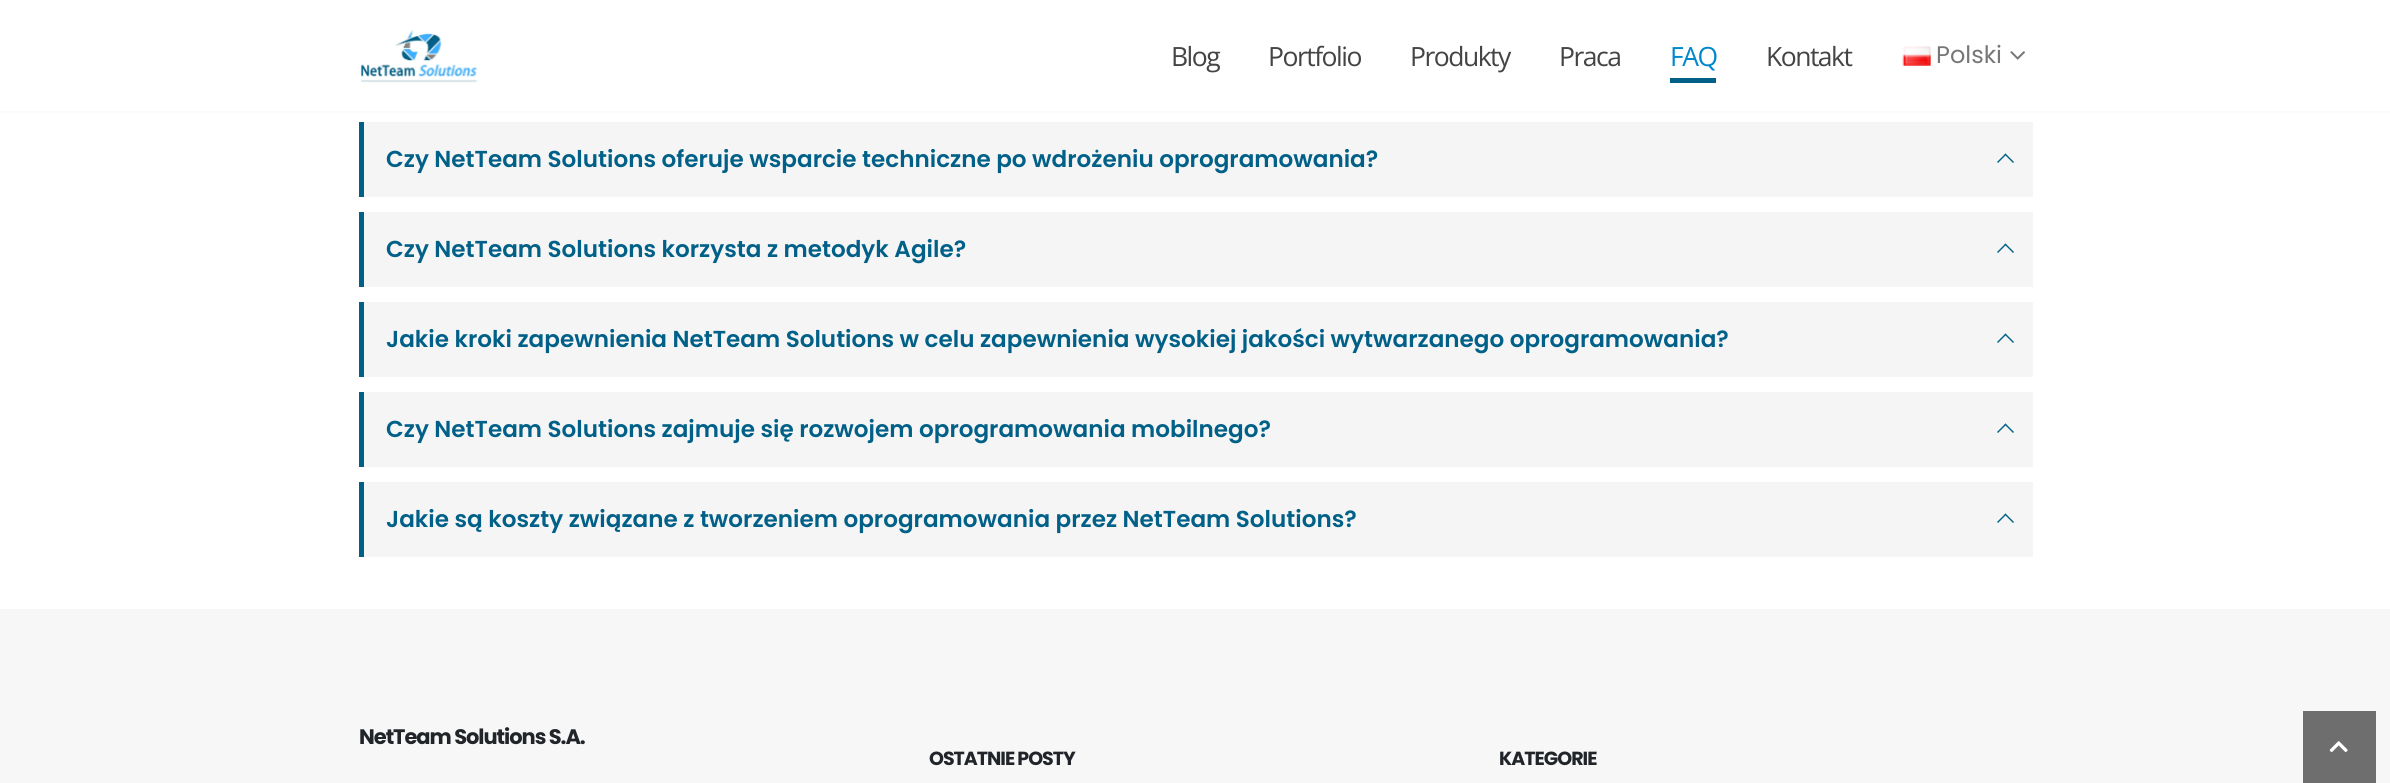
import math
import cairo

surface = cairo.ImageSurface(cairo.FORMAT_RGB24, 2390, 783)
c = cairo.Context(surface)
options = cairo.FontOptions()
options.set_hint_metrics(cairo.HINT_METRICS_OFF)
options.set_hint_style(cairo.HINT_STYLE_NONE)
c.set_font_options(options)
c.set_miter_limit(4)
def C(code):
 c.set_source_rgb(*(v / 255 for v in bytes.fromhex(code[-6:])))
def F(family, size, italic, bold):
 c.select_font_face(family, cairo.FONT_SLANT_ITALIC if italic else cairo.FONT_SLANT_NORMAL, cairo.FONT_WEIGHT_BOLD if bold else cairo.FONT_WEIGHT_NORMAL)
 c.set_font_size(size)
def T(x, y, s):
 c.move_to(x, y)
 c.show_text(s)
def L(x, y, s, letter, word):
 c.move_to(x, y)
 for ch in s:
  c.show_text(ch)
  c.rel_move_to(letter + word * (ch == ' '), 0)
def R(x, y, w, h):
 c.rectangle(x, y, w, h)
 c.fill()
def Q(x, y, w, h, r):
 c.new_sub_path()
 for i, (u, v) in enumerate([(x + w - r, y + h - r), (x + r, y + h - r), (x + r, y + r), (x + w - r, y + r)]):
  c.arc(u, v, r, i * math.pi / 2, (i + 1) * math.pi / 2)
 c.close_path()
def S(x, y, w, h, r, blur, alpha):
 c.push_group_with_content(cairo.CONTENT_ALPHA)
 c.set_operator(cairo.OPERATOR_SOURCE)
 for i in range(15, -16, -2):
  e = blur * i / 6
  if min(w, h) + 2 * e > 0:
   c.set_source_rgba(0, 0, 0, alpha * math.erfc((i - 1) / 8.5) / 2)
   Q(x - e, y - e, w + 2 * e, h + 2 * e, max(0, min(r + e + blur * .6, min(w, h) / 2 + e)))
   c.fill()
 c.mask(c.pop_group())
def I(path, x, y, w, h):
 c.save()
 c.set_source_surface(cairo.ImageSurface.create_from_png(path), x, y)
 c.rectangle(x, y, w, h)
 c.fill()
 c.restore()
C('ffffff')
c.paint()
C('000000')
S(0,0,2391,111,0,2,.06)
C('ffffff')
R(0,0,2390,111)
I('1.png',360,30,118,53)
F('Open Sans',26.5,0,0)
C('444444')
L(1171,66,'Blog',-1.5,0)
L(1268,66,'Portfolio',-1.5,0)
L(1410,66,'Produkty',-1.5,0)
L(1559,66,'Praca',-1.5,0)
C('0088cc')
L(1670,66,'FAQ',-1.5,0)
C('016088')
R(1670,78,46,5)
C('444444')
L(1766,66,'Kontakt',-1.5,0)
I('2.png',1902,46,29,20)
F('Poppins',24,0,0)
C('777777')
T(1936,63,'Polski')
I('3.png',2010,51,15,9)
C('f5f5f5')
R(364,122,1669,75)
C('016088')
R(359,122,5,75)
F('Poppins SemiBold',23.1,0,0)
T(386,167,'Czy NetTeam Solutions oferuje wsparcie techniczne po wdrożeniu oprogramowania?')
c.new_path()
c.move_to(1997,162)
c.line_to(2005.5,153.5)
c.line_to(2006.5,154.5)
c.line_to(1998,163)
c.close_path()
c.fill()
c.new_path()
c.move_to(2004.5,154.5)
c.line_to(2005.5,153.5)
c.line_to(2014,162)
c.line_to(2013,163)
c.close_path()
c.fill()
C('f5f5f5')
R(364,212,1669,75)
C('016088')
R(359,212,5,75)
T(386,257,'Czy NetTeam Solutions korzysta z metodyk Agile?')
c.new_path()
c.move_to(1997,252)
c.line_to(2005.5,243.5)
c.line_to(2006.5,244.5)
c.line_to(1998,253)
c.close_path()
c.fill()
c.new_path()
c.move_to(2004.5,244.5)
c.line_to(2005.5,243.5)
c.line_to(2014,252)
c.line_to(2013,253)
c.close_path()
c.fill()
C('f5f5f5')
R(364,302,1669,75)
C('016088')
R(359,302,5,75)
T(386,347,'Jakie kroki zapewnienia NetTeam Solutions w celu zapewnienia wysokiej jakości wytwarzanego oprogramowania?')
c.new_path()
c.move_to(1997,342)
c.line_to(2005.5,333.5)
c.line_to(2006.5,334.5)
c.line_to(1998,343)
c.close_path()
c.fill()
c.new_path()
c.move_to(2004.5,334.5)
c.line_to(2005.5,333.5)
c.line_to(2014,342)
c.line_to(2013,343)
c.close_path()
c.fill()
C('f5f5f5')
R(364,392,1669,75)
C('016088')
R(359,392,5,75)
T(386,437,'Czy NetTeam Solutions zajmuje się rozwojem oprogramowania mobilnego?')
c.new_path()
c.move_to(1997,432)
c.line_to(2005.5,423.5)
c.line_to(2006.5,424.5)
c.line_to(1998,433)
c.close_path()
c.fill()
c.new_path()
c.move_to(2004.5,424.5)
c.line_to(2005.5,423.5)
c.line_to(2014,432)
c.line_to(2013,433)
c.close_path()
c.fill()
C('f5f5f5')
R(364,482,1669,75)
C('016088')
R(359,482,5,75)
T(386,527,'Jakie są koszty związane z tworzeniem oprogramowania przez NetTeam Solutions?')
c.new_path()
c.move_to(1997,522)
c.line_to(2005.5,513.5)
c.line_to(2006.5,514.5)
c.line_to(1998,523)
c.close_path()
c.fill()
c.new_path()
c.move_to(2004.5,514.5)
c.line_to(2005.5,513.5)
c.line_to(2014,522)
c.line_to(2013,523)
c.close_path()
c.fill()
C('f7f7f7')
R(0,609,2390,174)
F('Poppins',21,0,1)
C('212529')
L(359,744,'NetTeam Solutions S.A.',-1.05,0)
F('Poppins',19,0,1)
L(929,765,'OSTATNIE POSTY',-1,0)
L(1499,765,'KATEGORIE',-1,0)
C('6e6e6e')
R(2303,711,73,72)
I('4.png',2329,741,19,11)
surface.write_to_png('o.png')
